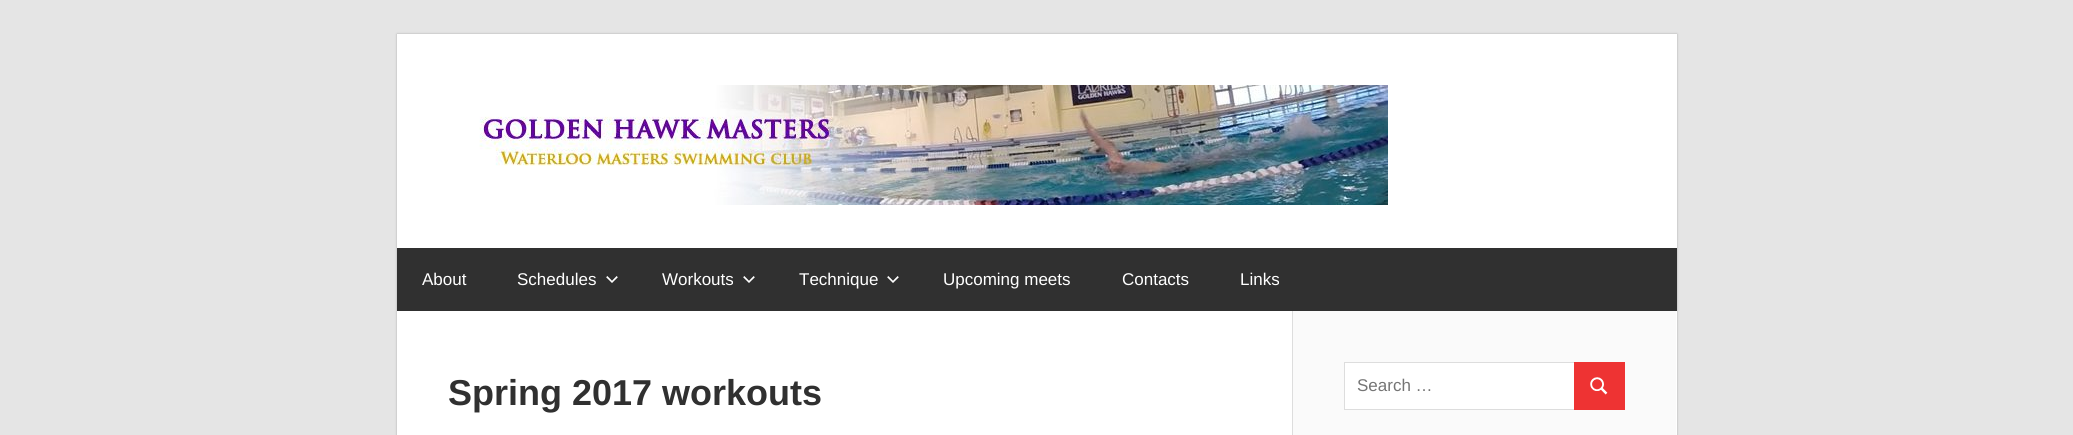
import math
import cairo

surface = cairo.ImageSurface(cairo.FORMAT_RGB24, 2073, 435)
c = cairo.Context(surface)
options = cairo.FontOptions()
options.set_hint_metrics(cairo.HINT_METRICS_OFF)
options.set_hint_style(cairo.HINT_STYLE_NONE)
c.set_font_options(options)
c.set_miter_limit(4)
def C(code):
 c.set_source_rgb(*(v / 255 for v in bytes.fromhex(code[-6:])))
def F(family, size, italic, bold):
 c.select_font_face(family, cairo.FONT_SLANT_ITALIC if italic else cairo.FONT_SLANT_NORMAL, cairo.FONT_WEIGHT_BOLD if bold else cairo.FONT_WEIGHT_NORMAL)
 c.set_font_size(size)
def T(x, y, s):
 c.move_to(x, y)
 c.show_text(s)
def R(x, y, w, h):
 c.rectangle(x, y, w, h)
 c.fill()
def Q(x, y, w, h, r):
 c.new_sub_path()
 for i, (u, v) in enumerate([(x + w - r, y + h - r), (x + r, y + h - r), (x + r, y + r), (x + w - r, y + r)]):
  c.arc(u, v, r, i * math.pi / 2, (i + 1) * math.pi / 2)
 c.close_path()
def S(x, y, w, h, r, blur, alpha):
 c.push_group_with_content(cairo.CONTENT_ALPHA)
 c.set_operator(cairo.OPERATOR_SOURCE)
 for i in range(15, -16, -2):
  e = blur * i / 6
  if min(w, h) + 2 * e > 0:
   c.set_source_rgba(0, 0, 0, alpha * math.erfc((i - 1) / 8.5) / 2)
   Q(x - e, y - e, w + 2 * e, h + 2 * e, max(0, min(r + e + blur * .6, min(w, h) / 2 + e)))
   c.fill()
 c.mask(c.pop_group())
def I(path, x, y, w, h):
 c.save()
 c.set_source_surface(cairo.ImageSurface.create_from_png(path), x, y)
 c.rectangle(x, y, w, h)
 c.fill()
 c.restore()
C('e5e5e5')
c.paint()
C('aaaaaa')
S(397,34,1280,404,0,1,1)
C('ffffff')
R(397,34,1280,401)
I('1.png',479,85,909,120)
C('303030')
R(397,248,1280,63)
F('Liberation Sans',17,0,0)
C('ffffff')
T(422,285,'About')
T(517,285,'Schedules')
I('2.png',606,276,12,7)
T(662,285,'Workouts')
I('2.png',743,276,12,7)
T(799,285,'Technique')
I('2.png',887,276,12,7)
T(943,285,'Upcoming meets')
T(1122,285,'Contacts')
T(1240,285,'Links')
F('Liberation Sans',36,0,1)
C('303030')
T(448,405,'Spring 2017 workouts')
C('fafafa')
R(1293,311,383,124)
C('dddddd')
R(1292,311,1,124)
C('ffffff')
c.rectangle(1344.5,362.5,230,47)
c.fill_preserve()
C('dddddd')
c.set_line_width(1)
c.stroke()
F('Liberation Sans',17,0,0)
C('757575')
T(1357,391,'Search …')
C('ee3333')
R(1574,362,51,48)
I('3.png',1590,377,18,18)
surface.write_to_png('o.png')
